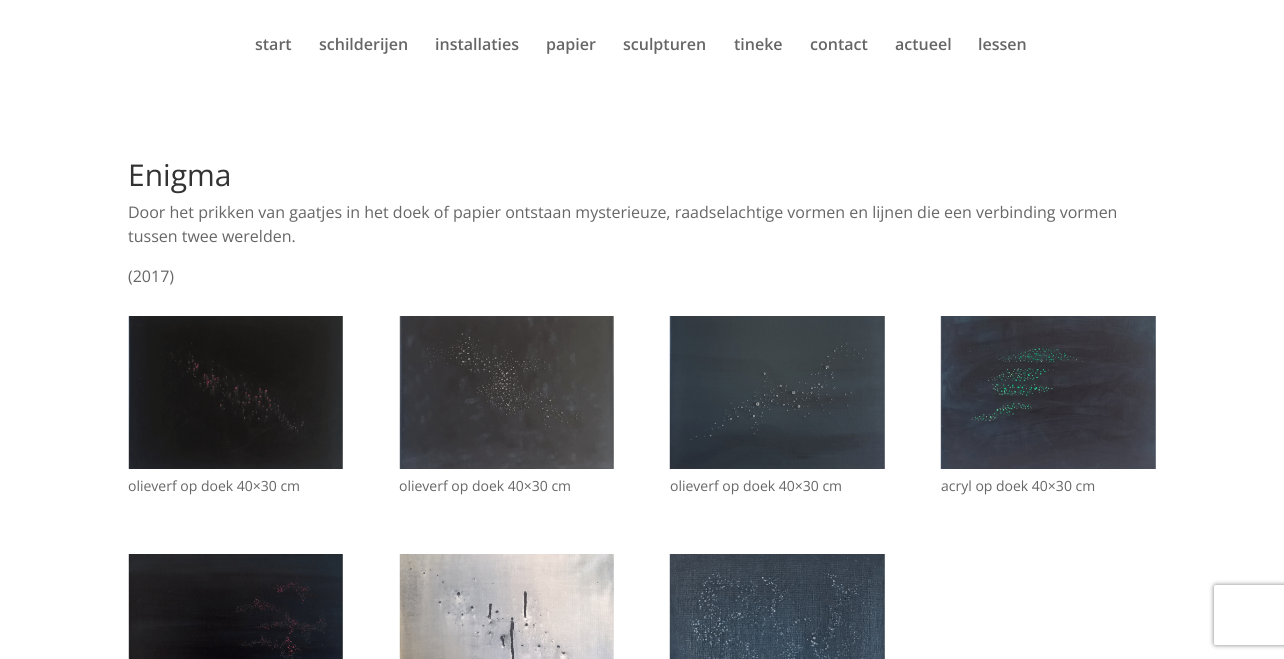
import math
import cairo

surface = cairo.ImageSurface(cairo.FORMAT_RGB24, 1284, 659)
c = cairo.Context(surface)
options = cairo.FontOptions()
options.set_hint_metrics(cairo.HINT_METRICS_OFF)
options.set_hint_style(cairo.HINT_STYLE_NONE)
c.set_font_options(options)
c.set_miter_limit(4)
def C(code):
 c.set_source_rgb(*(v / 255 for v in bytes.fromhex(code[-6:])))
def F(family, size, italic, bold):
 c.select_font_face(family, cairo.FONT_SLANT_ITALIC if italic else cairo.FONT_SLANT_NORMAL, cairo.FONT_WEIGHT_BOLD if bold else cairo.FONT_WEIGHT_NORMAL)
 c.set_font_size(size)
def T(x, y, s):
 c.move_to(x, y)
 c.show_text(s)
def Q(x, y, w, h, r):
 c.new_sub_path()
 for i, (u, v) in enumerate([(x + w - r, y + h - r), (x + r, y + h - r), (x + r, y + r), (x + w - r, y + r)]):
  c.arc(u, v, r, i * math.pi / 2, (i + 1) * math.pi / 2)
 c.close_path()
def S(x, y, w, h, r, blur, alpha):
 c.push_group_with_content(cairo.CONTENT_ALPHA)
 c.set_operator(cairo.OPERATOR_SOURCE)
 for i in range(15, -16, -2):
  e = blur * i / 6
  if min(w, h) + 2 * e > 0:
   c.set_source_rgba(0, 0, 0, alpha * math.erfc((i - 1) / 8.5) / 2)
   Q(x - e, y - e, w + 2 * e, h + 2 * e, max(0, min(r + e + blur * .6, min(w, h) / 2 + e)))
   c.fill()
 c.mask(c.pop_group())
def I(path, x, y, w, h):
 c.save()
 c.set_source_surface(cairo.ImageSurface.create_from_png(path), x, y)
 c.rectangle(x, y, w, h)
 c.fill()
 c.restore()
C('ffffff')
c.paint()
F('Open Sans SemiBold',16,0,0)
C('666666')
T(255,50,'start')
T(319,50,'schilderijen')
T(435,50,'installaties')
T(546,50,'papier')
T(623,50,'sculpturen')
T(734,50,'tineke')
T(810,50,'contact')
T(895,50,'actueel')
T(978,50,'lessen')
F('Open Sans',30,0,0)
C('333333')
T(128,186,'Enigma')
F('Open Sans',16,0,0)
C('666666')
T(128,218,'Door het prikken van gaatjes in het doek of papier ontstaan mysterieuze, raadselachtige vormen en lijnen die een verbinding vormen')
T(128,242,'tussen twee werelden.')
T(128,282,'(2017)')
I('1.png',128,316,215,153)
F('Open Sans',14,0,0)
T(128,491,'olieverf op doek 40×30 cm')
I('2.png',399,316,215,153)
T(399,491,'olieverf op doek 40×30 cm')
I('3.png',669,316,216,153)
T(670,491,'olieverf op doek 40×30 cm')
I('4.png',940,316,216,153)
T(941,491,'acryl op doek 40×30 cm')
I('5.png',128,554,215,105)
I('6.png',399,554,215,105)
I('7.png',669,554,216,105)
c.save()
c.set_fill_rule(cairo.FILL_RULE_EVEN_ODD)
c.new_path()
c.move_to(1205,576)
c.line_to(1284,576)
c.line_to(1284,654)
c.line_to(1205,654)
c.close_path()
c.move_to(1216,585)
c.line_to(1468,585)
c.curve_to(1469,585,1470,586,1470,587)
c.line_to(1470,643)
c.curve_to(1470,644,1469,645,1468,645)
c.line_to(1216,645)
c.curve_to(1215,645,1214,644,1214,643)
c.line_to(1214,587)
c.curve_to(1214,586,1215,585,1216,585)
c.close_path()
c.clip()
C('808080')
S(1214,585,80,60,2,2.5,1)
c.restore()
surface.write_to_png('o.png')
